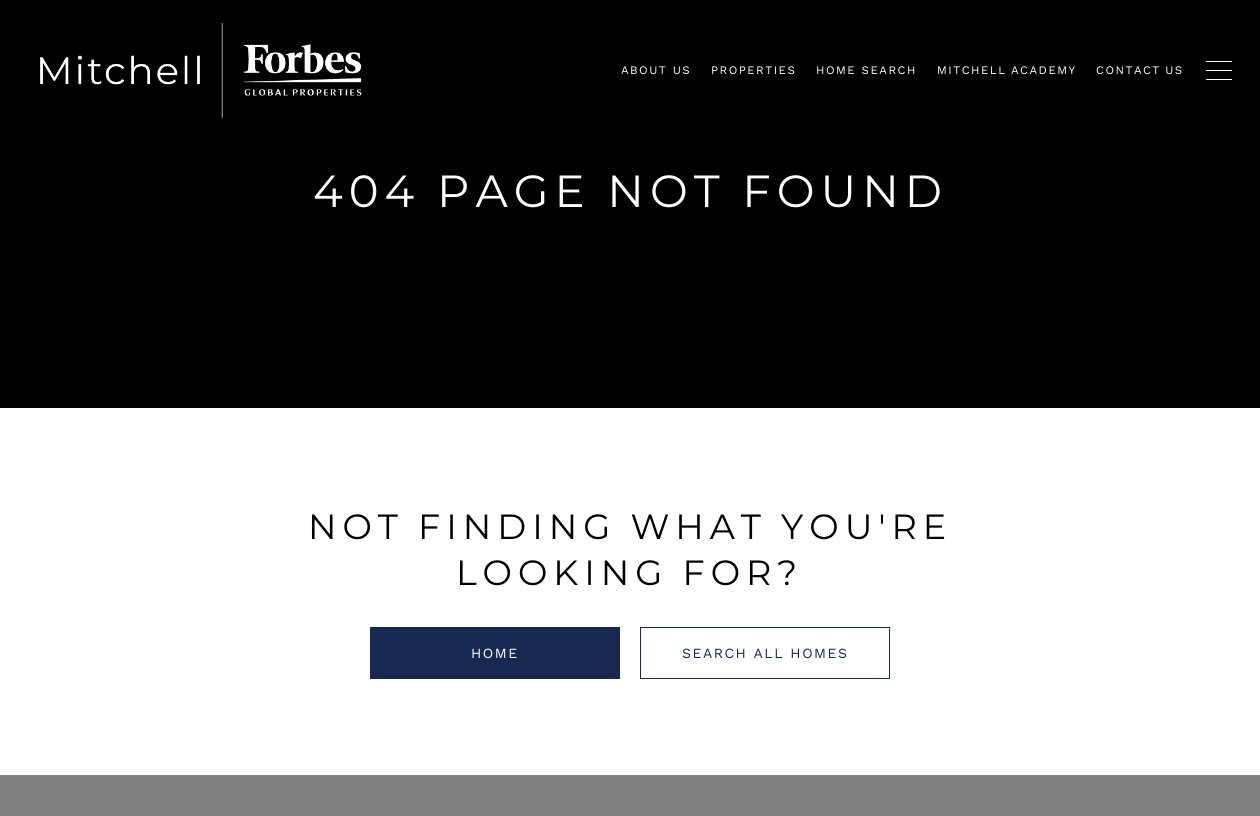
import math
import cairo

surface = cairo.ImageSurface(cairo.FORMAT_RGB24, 1260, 816)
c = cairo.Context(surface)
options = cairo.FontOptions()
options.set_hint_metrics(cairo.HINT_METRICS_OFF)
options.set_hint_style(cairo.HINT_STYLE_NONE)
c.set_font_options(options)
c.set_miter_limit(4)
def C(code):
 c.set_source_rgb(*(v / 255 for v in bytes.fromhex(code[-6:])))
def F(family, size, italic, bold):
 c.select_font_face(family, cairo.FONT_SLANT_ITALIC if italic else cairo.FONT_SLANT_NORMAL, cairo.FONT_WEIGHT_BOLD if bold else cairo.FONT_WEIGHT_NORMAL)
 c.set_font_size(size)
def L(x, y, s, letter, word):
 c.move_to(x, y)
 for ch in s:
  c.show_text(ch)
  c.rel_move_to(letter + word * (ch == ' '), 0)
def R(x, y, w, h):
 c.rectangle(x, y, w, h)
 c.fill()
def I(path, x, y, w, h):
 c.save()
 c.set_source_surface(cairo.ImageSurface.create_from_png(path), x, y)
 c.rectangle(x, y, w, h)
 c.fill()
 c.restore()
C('ffffff')
c.paint()
C('000000')
R(0,0,1260,408)
I('1.png',40,23,322,96)
F('Work Sans',11.5,0,0)
C('ffffff')
L(621,74,'ABOUT US',1.5,0)
L(711,74,'PROPERTIES',1.5,0)
L(816,74,'HOME SEARCH',1.5,0)
L(937,74,'MITCHELL ACADEMY',1.5,-1)
L(1096,74,'CONTACT US',1.5,-1)
R(1206,70,26,1)
R(1206,61,26,1)
R(1206,79,26,1)
F('Montserrat',45,0,0)
L(313,207,'404 PAGE NOT FOUND',6,-1)
F('Montserrat',35,0,0)
C('000000')
L(308,539,'NOT FINDING WHAT YOU\'RE',6,-1)
L(456,585,'LOOKING FOR?',6,-1)
C('182851')
R(370,627,250,52)
F('Work Sans',14,0,0)
C('ffffff')
L(471,658,'HOME',1.5,0)
c.rectangle(640.5,627.5,249,51)
C('182851')
c.set_line_width(1)
c.stroke()
L(682,658,'SEARCH ALL HOMES',1.5,0)
C('808080')
R(0,775,1260,41)
surface.write_to_png('o.png')
